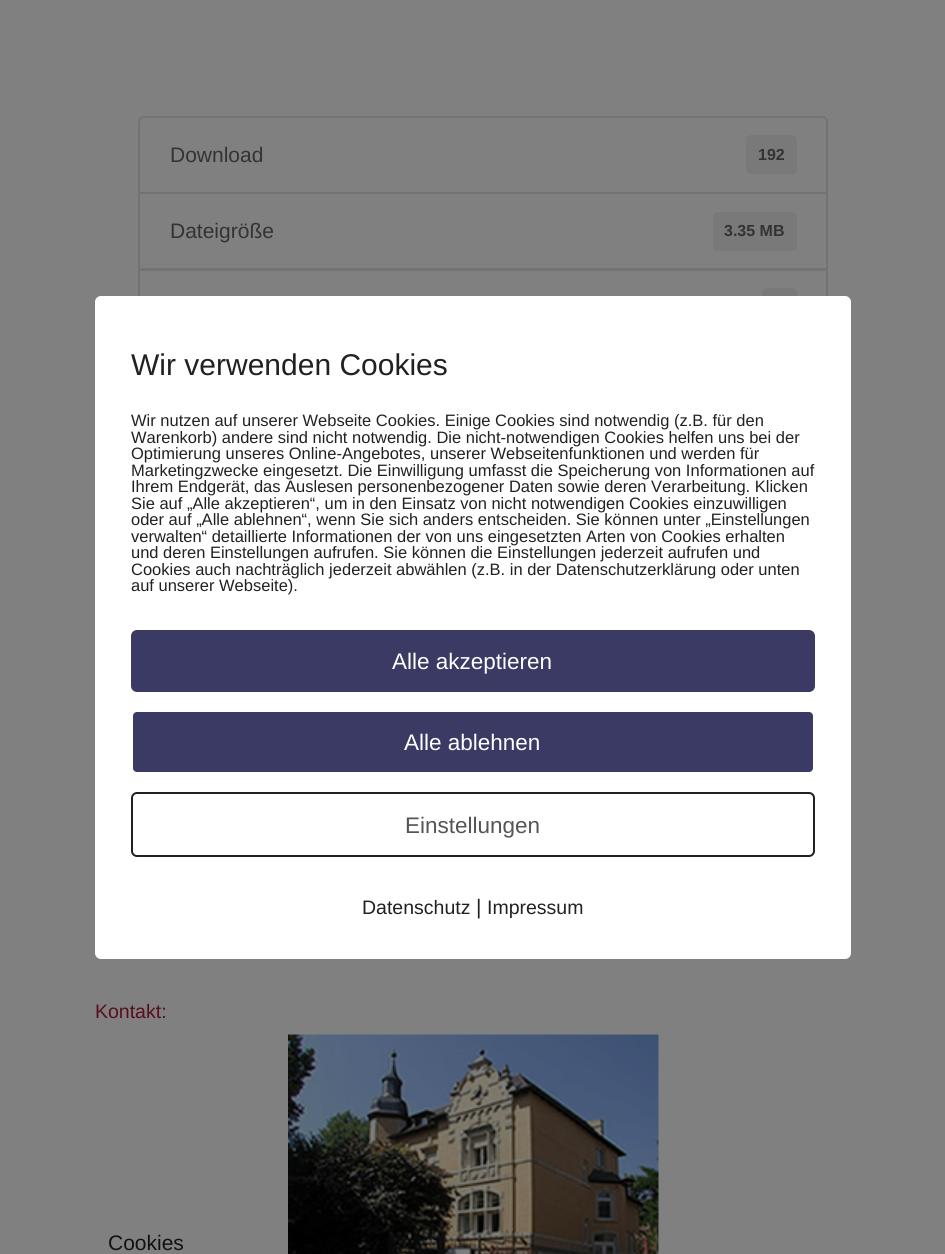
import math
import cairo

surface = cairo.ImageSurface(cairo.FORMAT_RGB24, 945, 1254)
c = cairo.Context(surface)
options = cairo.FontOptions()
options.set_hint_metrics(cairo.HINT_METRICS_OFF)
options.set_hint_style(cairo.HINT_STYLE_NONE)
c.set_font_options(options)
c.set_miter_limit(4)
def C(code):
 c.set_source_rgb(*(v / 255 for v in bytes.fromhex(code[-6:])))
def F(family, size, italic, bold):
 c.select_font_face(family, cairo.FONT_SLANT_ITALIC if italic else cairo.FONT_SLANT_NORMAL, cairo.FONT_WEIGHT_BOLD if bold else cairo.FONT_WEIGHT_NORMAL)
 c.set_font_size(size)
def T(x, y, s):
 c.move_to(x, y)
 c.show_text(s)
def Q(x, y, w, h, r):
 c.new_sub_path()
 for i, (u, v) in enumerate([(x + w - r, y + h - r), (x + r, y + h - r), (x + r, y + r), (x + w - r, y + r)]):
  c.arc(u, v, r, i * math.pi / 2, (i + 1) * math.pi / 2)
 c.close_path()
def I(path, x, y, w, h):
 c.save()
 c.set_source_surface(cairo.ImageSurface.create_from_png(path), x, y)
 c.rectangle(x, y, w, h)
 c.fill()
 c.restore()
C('808080')
c.paint()
c.new_path()
c.move_to(144,117)
c.line_to(822,117)
c.curve_to(825,117,827,119,827,122)
c.line_to(827,193)
c.line_to(139,193)
c.line_to(139,122)
c.curve_to(139,119,141,117,144,117)
c.close_path()
C('737373')
c.stroke()
F('Liberation Sans',21,0,0)
C('333333')
T(170,162,'Download')
C('797979')
Q(746,135,51,39,5)
c.fill()
F('Liberation Sans',16,0,1)
C('333333')
T(758,160,'192')
c.rectangle(139,193,688,76)
C('737373')
c.stroke()
F('Liberation Sans',21,0,0)
C('333333')
T(170,238,'Dateigröße')
C('797979')
Q(713,212,84,39,5)
c.fill()
F('Liberation Sans',16,0,1)
C('333333')
T(724,236,'3.35 MB')
c.rectangle(139,270,688,76)
C('737373')
c.stroke()
C('797979')
Q(762,288,35,39,5)
c.fill()
Q(96,897,754,58,4)
C('6f6f6f')
c.stroke()
c.new_path()
c.move_to(96,897)
c.line_to(846,897)
c.curve_to(848,897,850,899,850,901)
c.line_to(850,951)
c.curve_to(850,953,848,955,846,955)
c.line_to(96,955)
c.close_path()
c.stroke()
F('Liberation Sans',19.5,0,0)
C('590d1e')
T(95,1018,'Kontakt:')
I('1.png',288,1034,371,220)
C('ffffff')
Q(95,296,756,663,6)
c.fill()
F('Liberation Sans',30,0,0)
C('212121')
T(131,375,'Wir verwenden Cookies')
F('Liberation Sans',16.5,0,0)
T(131,426,'Wir nutzen auf unserer Webseite Cookies. Einige Cookies sind notwendig (z.B. für den')
T(131,443,'Warenkorb) andere sind nicht notwendig. Die nicht-notwendigen Cookies helfen uns bei der')
T(131,459,'Optimierung unseres Online-Angebotes, unserer Webseitenfunktionen und werden für')
T(131,476,'Marketingzwecke eingesetzt. Die Einwilligung umfasst die Speicherung von Informationen auf')
T(131,492,'Ihrem Endgerät, das Auslesen personenbezogener Daten sowie deren Verarbeitung. Klicken')
T(131,509,'Sie auf „Alle akzeptieren“, um in den Einsatz von nicht notwendigen Cookies einzuwilligen')
T(131,525,'oder auf „Alle ablehnen“, wenn Sie sich anders entscheiden. Sie können unter „Einstellungen')
T(131,542,'verwalten“ detaillierte Informationen der von uns eingesetzten Arten von Cookies erhalten')
T(131,558,'und deren Einstellungen aufrufen. Sie können die Einstellungen jederzeit aufrufen und')
T(131,575,'Cookies auch nachträglich jederzeit abwählen (z.B. in der Datenschutzerklärung oder unten')
T(131,591,'auf unserer Webseite).')
C('3b3a64')
Q(131,630,684,62,6)
c.fill()
F('Liberation Sans',22.5,0,0)
C('ffffff')
T(392,669,'Alle akzeptieren')
C('3b3a64')
Q(132,711,682,62,5)
c.fill_preserve()
C('ffffff')
c.stroke()
T(404,750,'Alle ablehnen')
Q(132,793,682,63,5)
C('212121')
c.stroke()
C('555555')
T(405,833,'Einstellungen')
F('Liberation Sans',19.5,0,0)
C('212121')
T(362,914,'Datenschutz')
F('Liberation Sans',21,0,0)
T(476,914,'|')
F('Liberation Sans',19.5,0,0)
T(487,914,'Impressum')
F('Liberation Sans',21,0,0)
C('111111')
T(108,1250,'Cookies')
surface.write_to_png('o.png')
